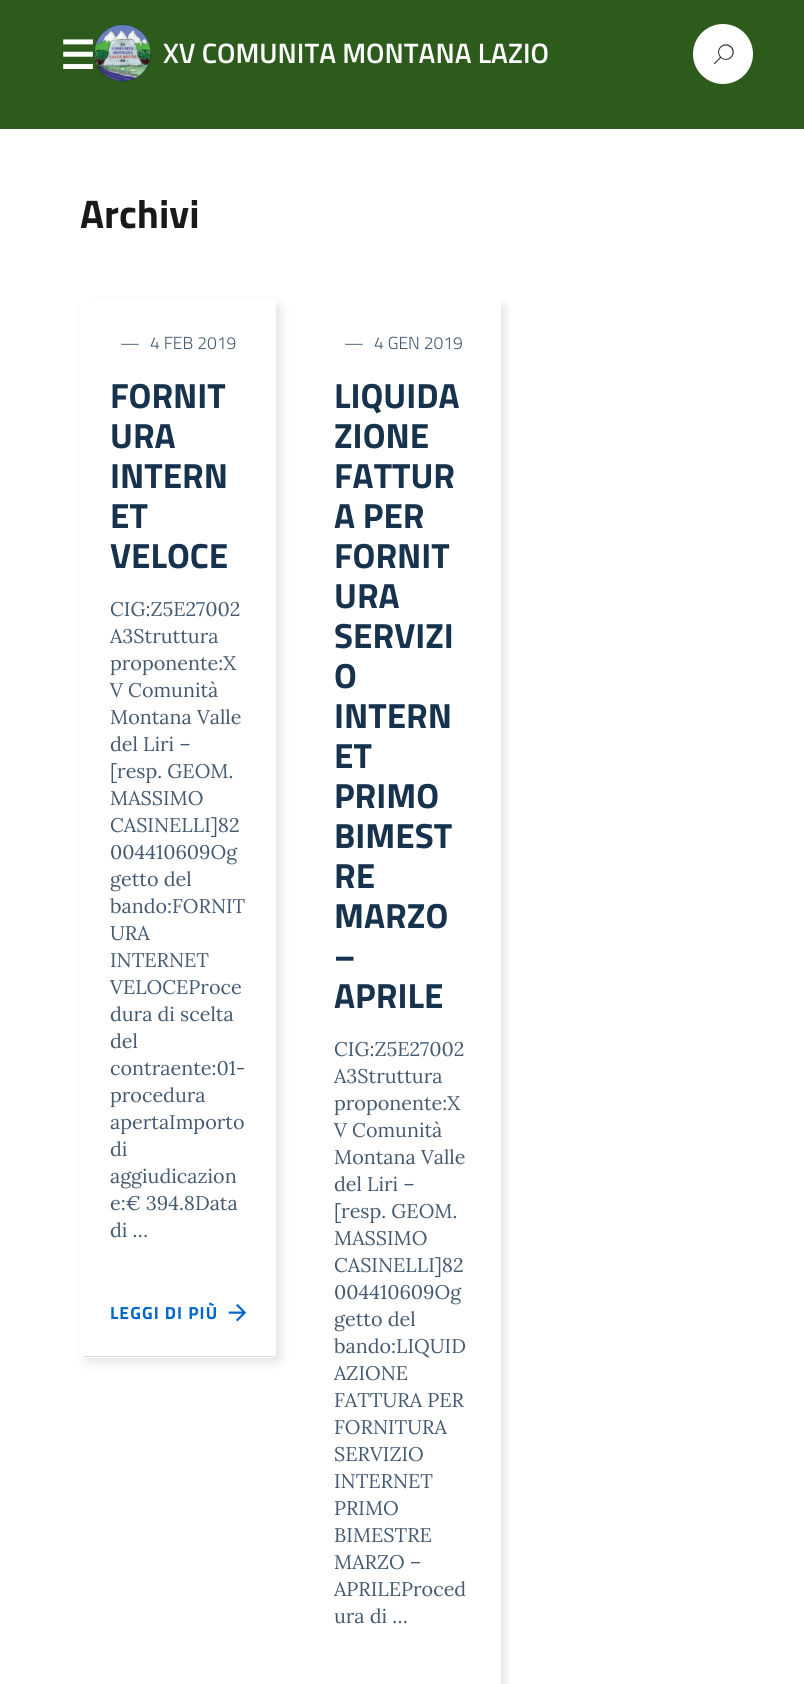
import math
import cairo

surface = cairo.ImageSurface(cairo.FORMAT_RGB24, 804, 1684)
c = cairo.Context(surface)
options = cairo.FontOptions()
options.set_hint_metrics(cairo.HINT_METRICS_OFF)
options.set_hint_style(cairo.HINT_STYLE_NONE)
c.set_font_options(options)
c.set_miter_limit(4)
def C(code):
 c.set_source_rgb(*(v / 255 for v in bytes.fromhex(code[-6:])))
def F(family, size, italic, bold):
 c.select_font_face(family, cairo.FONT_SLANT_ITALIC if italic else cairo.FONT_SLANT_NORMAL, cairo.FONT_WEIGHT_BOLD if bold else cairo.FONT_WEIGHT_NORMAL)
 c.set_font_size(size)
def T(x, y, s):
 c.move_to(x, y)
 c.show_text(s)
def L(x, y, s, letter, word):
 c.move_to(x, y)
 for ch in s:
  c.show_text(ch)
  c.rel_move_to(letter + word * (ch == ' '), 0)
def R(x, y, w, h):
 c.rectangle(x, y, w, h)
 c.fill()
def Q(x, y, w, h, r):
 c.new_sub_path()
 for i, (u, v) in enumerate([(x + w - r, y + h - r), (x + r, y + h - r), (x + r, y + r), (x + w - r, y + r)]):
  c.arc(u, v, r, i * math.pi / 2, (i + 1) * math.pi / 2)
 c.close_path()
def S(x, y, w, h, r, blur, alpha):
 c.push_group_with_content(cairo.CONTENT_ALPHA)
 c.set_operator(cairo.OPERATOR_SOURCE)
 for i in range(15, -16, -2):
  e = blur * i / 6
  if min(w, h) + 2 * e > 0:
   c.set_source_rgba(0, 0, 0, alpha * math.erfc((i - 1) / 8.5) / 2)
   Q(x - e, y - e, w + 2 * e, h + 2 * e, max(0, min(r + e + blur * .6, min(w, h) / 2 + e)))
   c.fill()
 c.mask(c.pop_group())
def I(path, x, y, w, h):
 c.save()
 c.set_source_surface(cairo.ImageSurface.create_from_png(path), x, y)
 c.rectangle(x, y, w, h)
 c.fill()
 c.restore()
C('ffffff')
c.paint()
C('2d5b1b')
R(0,0,804,129)
F('DejaVu Sans',39,0,1)
C('ffffff')
T(60,69,'☰')
I('1.png',93,24,59,58)
F('Titillium Web SemiBold',28.1,0,0)
T(163,63,'XV COMUNITA MONTANA LAZIO')
c.new_path()
c.arc(723,54,30,0,2 * math.pi)
c.fill()
I('2.png',713,44,21,21)
F('Titillium Web',40,0,1)
C('19191a')
T(80,228,'Archivi')
C('000000')
S(85,304,196,1059,5,5,.1)
C('ffffff')
Q(80,299,196,1059,5)
c.fill()
C('dddddd')
R(83,1356,191,1)
F('Titillium Web Light',17.5,0,0)
C('435a70')
T(120,349,'—')
T(150,349,'4 FEB 2019')
F('Titillium Web',35,0,1)
C('17324d')
T(110,408,'FORNIT')
T(110,448,'URA')
T(110,488,'INTERN')
T(110,528,'ET')
T(110,568,'VELOCE')
F('Lora',19.75,0,0)
C('435a70')
T(110,616,'CIG:Z5E27002')
T(110,643,'A3Struttura')
T(110,670,'proponente:X')
T(110,697,'V Comunità')
T(110,724,'Montana Valle')
T(110,751,'del Liri –')
T(110,778,'[resp. GEOM.')
T(110,805,'MASSIMO')
T(110,832,'CASINELLI]82')
T(110,859,'004410609Og')
T(110,886,'getto del')
T(110,913,'bando:FORNIT')
T(110,940,'URA')
T(110,967,'INTERNET')
T(110,994,'VELOCEProce')
T(110,1021,'dura di scelta')
T(110,1048,'del')
T(110,1075,'contraente:01-')
T(110,1102,'procedura')
T(110,1129,'apertaImporto')
T(110,1156,'di')
T(110,1183,'aggiudicazion')
T(110,1210,'e:€ 394.8Data')
T(110,1237,'di …')
F('Titillium Web',17.5,0,1)
C('0066cc')
L(110,1319,'LEGGI DI PIÙ',1.1,0)
I('3.png',228,1304,19,18)
c.save()
c.rectangle(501,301,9,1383)
c.clip()
C('000000')
S(310,304,196,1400,5,5,.1)
c.restore()
F('Titillium Web Light',17.5,0,0)
C('435a70')
T(344,349,'—')
T(374,349,'4 GEN 2019')
F('Titillium Web',35,0,1)
C('17324d')
T(334,408,'LIQUIDA')
T(334,448,'ZIONE')
T(334,488,'FATTUR')
T(334,528,'A PER')
T(334,568,'FORNIT')
T(334,608,'URA')
T(334,648,'SERVIZI')
T(334,688,'O')
T(334,728,'INTERN')
T(334,768,'ET')
T(334,808,'PRIMO')
T(334,848,'BIMEST')
T(334,888,'RE')
T(334,928,'MARZO')
T(334,968,'–')
T(334,1008,'APRILE')
F('Lora',19.75,0,0)
C('435a70')
T(334,1056,'CIG:Z5E27002')
T(334,1083,'A3Struttura')
T(334,1110,'proponente:X')
T(334,1137,'V Comunità')
T(334,1164,'Montana Valle')
T(334,1191,'del Liri –')
T(334,1218,'[resp. GEOM.')
T(334,1245,'MASSIMO')
T(334,1272,'CASINELLI]82')
T(334,1299,'004410609Og')
T(334,1326,'getto del')
T(334,1353,'bando:LIQUID')
T(334,1380,'AZIONE')
T(334,1407,'FATTURA PER')
T(334,1434,'FORNITURA')
T(334,1461,'SERVIZIO')
T(334,1488,'INTERNET')
T(334,1515,'PRIMO')
T(334,1542,'BIMESTRE')
T(334,1569,'MARZO –')
T(334,1596,'APRILEProced')
T(334,1623,'ura di …')
surface.write_to_png('o.png')
